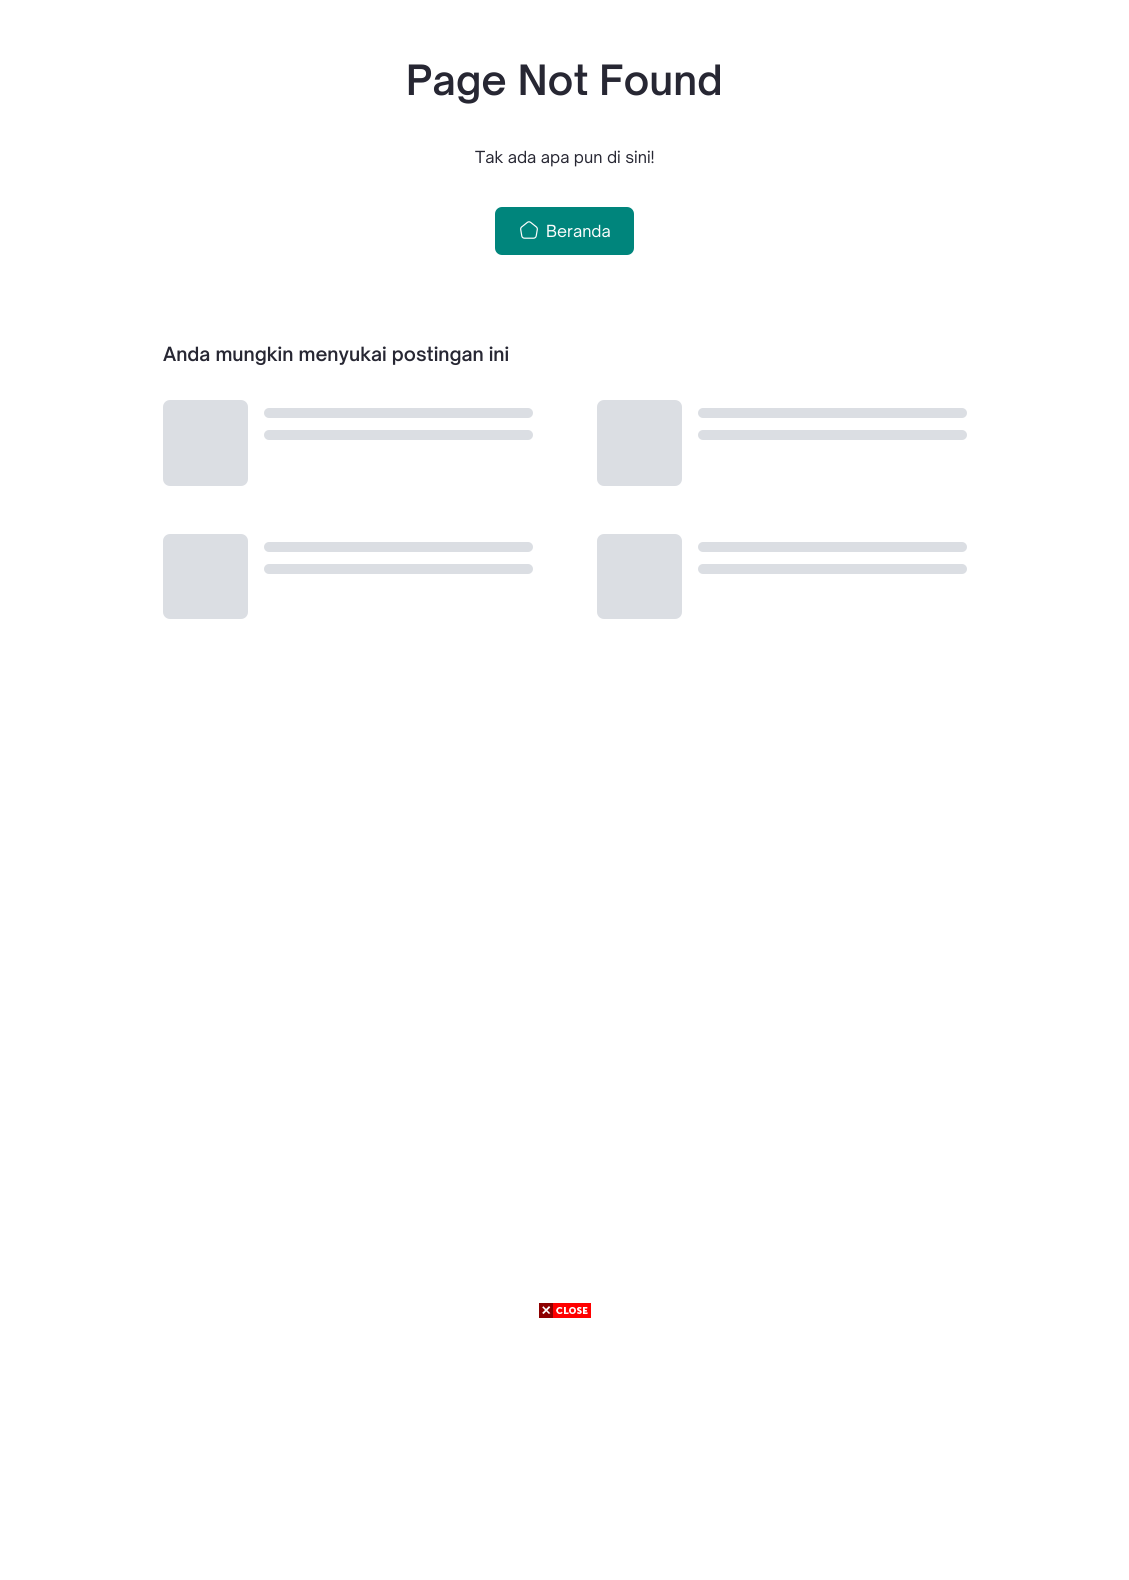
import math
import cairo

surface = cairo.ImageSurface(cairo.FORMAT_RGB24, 1129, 1580)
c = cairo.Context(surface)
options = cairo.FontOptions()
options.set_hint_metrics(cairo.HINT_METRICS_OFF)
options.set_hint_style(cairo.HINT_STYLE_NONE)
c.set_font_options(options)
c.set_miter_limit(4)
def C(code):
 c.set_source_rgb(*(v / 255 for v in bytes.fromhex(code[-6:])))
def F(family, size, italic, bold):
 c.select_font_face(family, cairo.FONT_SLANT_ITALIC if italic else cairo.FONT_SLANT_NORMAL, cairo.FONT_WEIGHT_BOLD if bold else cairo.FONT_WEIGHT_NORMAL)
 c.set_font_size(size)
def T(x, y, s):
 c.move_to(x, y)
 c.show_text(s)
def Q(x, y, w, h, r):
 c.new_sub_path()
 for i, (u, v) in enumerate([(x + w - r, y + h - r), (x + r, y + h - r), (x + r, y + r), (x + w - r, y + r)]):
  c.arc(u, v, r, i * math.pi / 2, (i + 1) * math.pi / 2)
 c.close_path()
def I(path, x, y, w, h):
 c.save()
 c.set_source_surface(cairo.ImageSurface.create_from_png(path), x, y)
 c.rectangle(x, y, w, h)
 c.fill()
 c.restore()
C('ffffff')
c.paint()
F('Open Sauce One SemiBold',40,0,0)
C('272733')
T(406,95,'Page Not Found')
F('Open Sauce One',16,0,0)
T(475,163,'Tak ada apa pun di sini!')
C('00857c')
Q(495,207,139,48,7)
c.fill()
I('1.png',520,221,18,18)
C('fdfdfd')
T(546,237,'Beranda')
F('Open Sauce One SemiBold',18.75,0,0)
C('272733')
T(163,361,'Anda mungkin menyukai postingan ini')
C('dbdee3')
Q(163,400,85,86,7)
c.fill()
Q(264,408,269,10,5)
c.fill()
Q(264,430,269,10,5)
c.fill()
Q(597,400,85,86,7)
c.fill()
Q(698,408,269,10,5)
c.fill()
Q(698,430,269,10,5)
c.fill()
Q(163,534,85,85,7)
c.fill()
Q(264,542,269,10,5)
c.fill()
Q(264,564,269,10,5)
c.fill()
Q(597,534,85,85,7)
c.fill()
Q(698,542,269,10,5)
c.fill()
Q(698,564,269,10,5)
c.fill()
I('2.png',539,1303,52,15)
surface.write_to_png('o.png')
